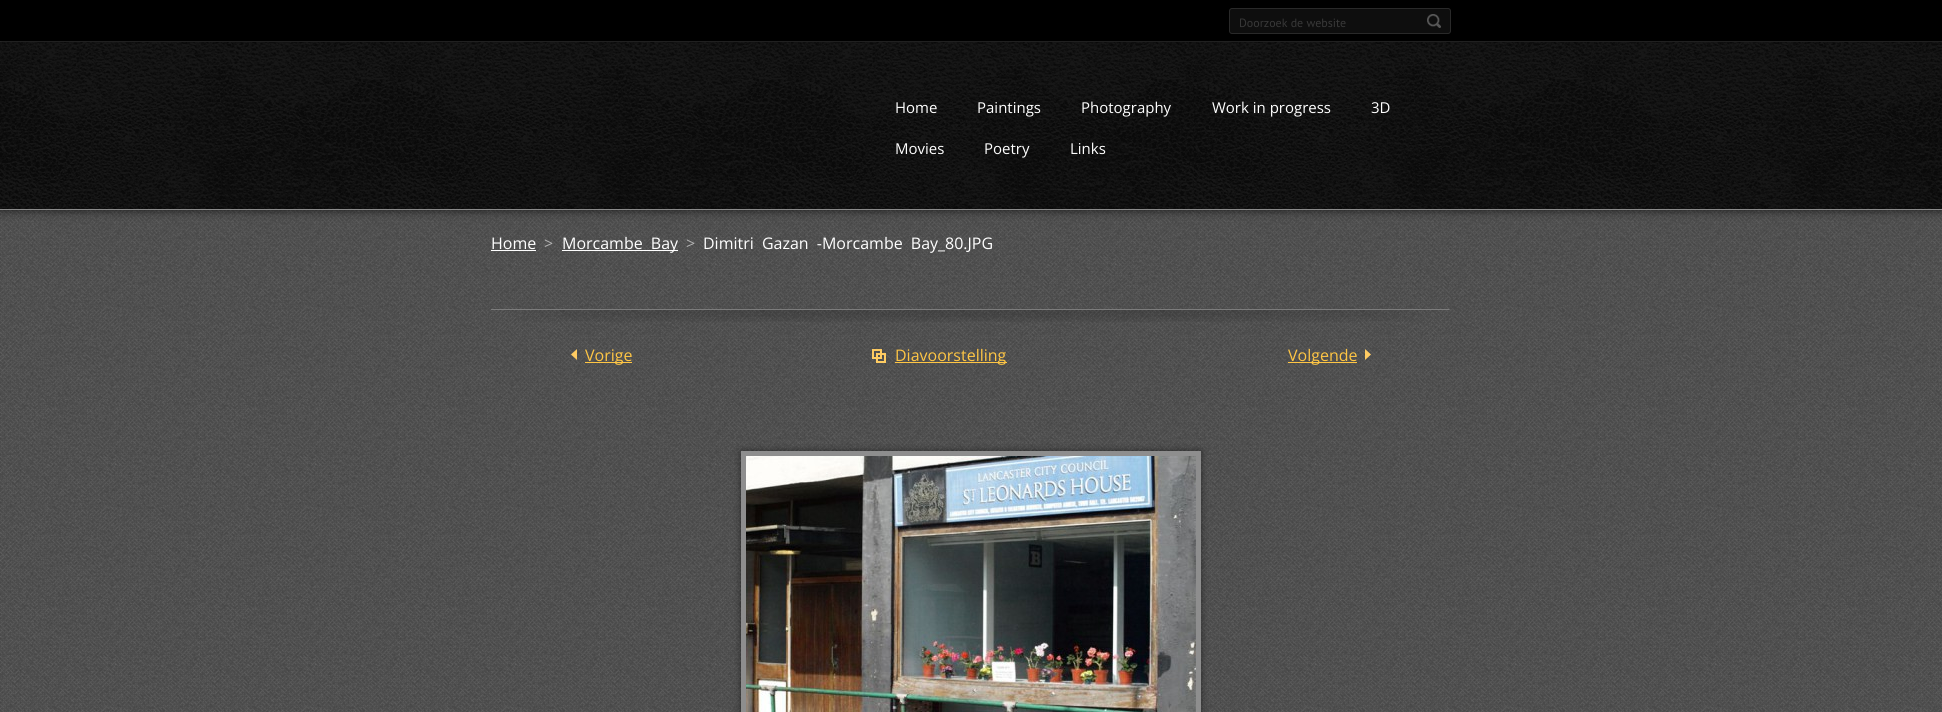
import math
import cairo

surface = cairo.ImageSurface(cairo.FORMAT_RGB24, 1942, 712)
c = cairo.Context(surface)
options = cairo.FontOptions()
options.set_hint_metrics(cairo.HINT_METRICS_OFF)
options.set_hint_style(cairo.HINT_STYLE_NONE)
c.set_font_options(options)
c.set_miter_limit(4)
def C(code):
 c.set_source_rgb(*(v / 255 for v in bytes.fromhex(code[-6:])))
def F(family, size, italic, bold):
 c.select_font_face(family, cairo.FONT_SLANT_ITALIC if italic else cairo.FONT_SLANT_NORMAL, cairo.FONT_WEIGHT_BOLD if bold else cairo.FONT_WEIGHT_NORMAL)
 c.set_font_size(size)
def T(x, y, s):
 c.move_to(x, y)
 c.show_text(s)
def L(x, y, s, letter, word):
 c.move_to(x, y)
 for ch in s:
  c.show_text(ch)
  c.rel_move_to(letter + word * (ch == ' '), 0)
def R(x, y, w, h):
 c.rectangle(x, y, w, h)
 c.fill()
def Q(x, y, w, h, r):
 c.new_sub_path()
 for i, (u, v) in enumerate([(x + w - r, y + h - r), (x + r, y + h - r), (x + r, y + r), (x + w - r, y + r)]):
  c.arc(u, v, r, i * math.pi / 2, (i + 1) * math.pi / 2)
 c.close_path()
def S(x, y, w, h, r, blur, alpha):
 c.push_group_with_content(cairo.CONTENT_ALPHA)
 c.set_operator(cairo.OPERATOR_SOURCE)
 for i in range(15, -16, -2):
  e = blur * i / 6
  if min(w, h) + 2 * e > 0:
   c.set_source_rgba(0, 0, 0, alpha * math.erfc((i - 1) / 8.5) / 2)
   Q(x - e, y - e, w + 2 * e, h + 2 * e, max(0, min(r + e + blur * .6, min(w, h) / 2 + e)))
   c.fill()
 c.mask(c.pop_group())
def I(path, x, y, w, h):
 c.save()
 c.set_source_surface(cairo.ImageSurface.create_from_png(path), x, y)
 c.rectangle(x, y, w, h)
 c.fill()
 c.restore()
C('ffffff')
c.paint()
I('1.png',0,210,1942,502)
C('000000')
R(0,0,1942,41)
C('303030')
R(0,41,1942,1)
C('000000')
S(0,42,1942,168,0,5,.7)
C('0e0e0e')
Q(1229.5,8.5,221,25,2.5)
c.fill_preserve()
C('292929')
c.set_line_width(1)
c.stroke()
F('PT Sans',12,0,0)
C('383838')
T(1239,27,'Doorzoek de website')
I('2.png',1427,14,14,14)
I('3.png',0,42,1942,167)
C('8a8a8a')
R(0,209,1942,1)
F('Open Sans',15,0,0)
C('ffffff')
T(895,113,'Home')
T(977,113,'Paintings')
T(1081,113,'Photography')
T(1212,113,'Work in progress')
T(1371,113,'3D')
T(895,154,'Movies')
T(984,154,'Poetry')
T(1070,154,'Links')
F('Open Sans',16,0,0)
T(491,249,'Home')
R(491,250,45,1)
C('b3b3b3')
T(544,249,'>')
C('ffffff')
R(562,250,116,1)
L(562,249,'Morcambe Bay',0,4)
C('b3b3b3')
T(686,249,'>')
C('ffffff')
L(703,249,'Dimitri Gazan -Morcambe Bay_80.JPG',0,4)
I('4.png',491,309,959,13)
I('5.png',571,349,6,11)
C('ffc644')
R(585,362,47,1)
T(585,361,'Vorige')
I('6.png',872,349,14,14)
R(895,362,112,1)
T(895,361,'Diavoorstelling')
I('7.png',1365,349,6,11)
R(1288,362,69,1)
T(1288,361,'Volgende')
C('000000')
S(741,451,460,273,0,4,.5)
c.rectangle(743.5,453.5,455,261)
C('8e8e8e')
c.set_line_width(5)
c.stroke()
I('8.png',746,456,450,256)
surface.write_to_png('o.png')
